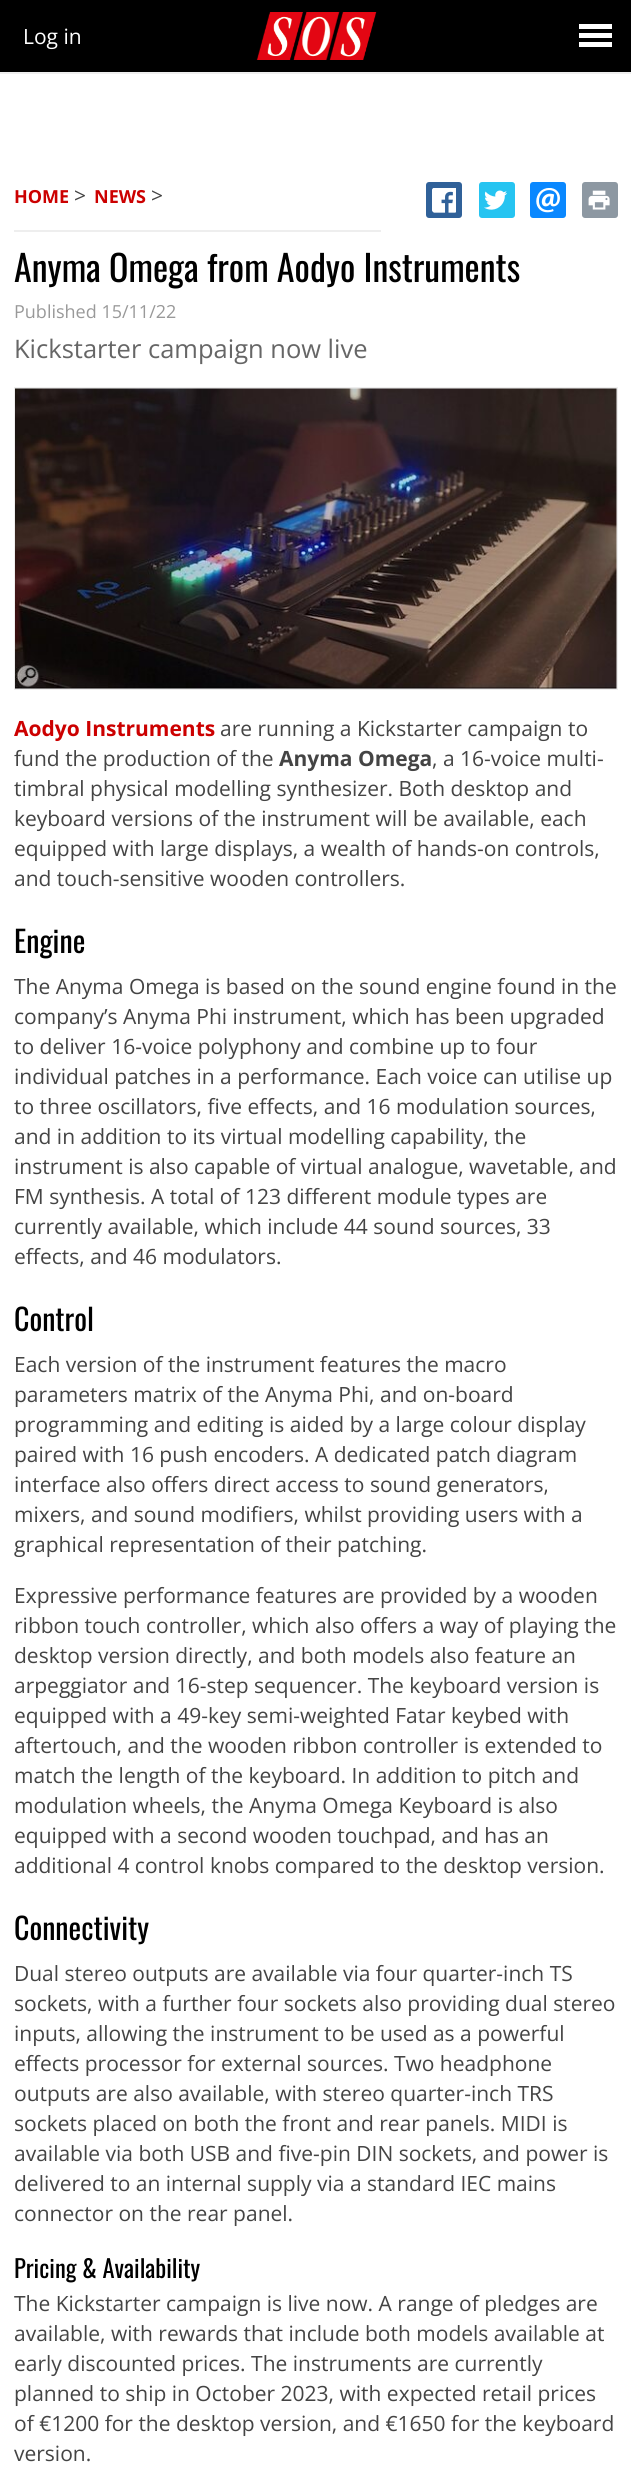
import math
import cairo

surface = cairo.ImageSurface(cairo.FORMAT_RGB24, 631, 2488)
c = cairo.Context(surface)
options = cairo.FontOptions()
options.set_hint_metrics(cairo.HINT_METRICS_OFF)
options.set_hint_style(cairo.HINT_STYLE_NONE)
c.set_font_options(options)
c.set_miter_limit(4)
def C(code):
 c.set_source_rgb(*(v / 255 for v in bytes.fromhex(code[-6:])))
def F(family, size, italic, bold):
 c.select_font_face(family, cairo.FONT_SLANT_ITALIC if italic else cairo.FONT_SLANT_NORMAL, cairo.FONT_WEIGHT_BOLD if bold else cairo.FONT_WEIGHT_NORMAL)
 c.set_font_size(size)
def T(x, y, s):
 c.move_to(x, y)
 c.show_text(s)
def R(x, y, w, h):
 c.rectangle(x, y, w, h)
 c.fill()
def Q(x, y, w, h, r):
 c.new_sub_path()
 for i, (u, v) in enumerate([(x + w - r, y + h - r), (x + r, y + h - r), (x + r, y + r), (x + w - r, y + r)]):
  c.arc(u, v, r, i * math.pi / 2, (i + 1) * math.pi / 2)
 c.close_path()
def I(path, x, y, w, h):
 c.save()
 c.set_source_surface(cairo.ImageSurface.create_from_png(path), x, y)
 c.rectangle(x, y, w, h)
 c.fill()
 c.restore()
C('ffffff')
c.paint()
C('000000')
R(0,0,631,72)
C('ffffff')
R(579,24,33,5)
R(579,33,33,5)
R(579,42,33,5)
F('Open Sans',21,0,0)
T(23,44,'Log in')
I('1.png',256,12,121,48)
C('eeeeee')
R(0,72,631,2)
R(14,230,367,2)
F('Open Sans',18,0,1)
C('cc0000')
T(14,203,'HOME')
F('Open Sans',21,0,0)
C('444444')
T(74,203,'>')
F('Open Sans',18,0,1)
C('cc0000')
T(94,203,'NEWS')
F('Open Sans',21,0,0)
C('444444')
T(151,203,'>')
C('306199')
Q(426,182,36,36,3)
c.fill()
I('2.png',432,188,24,25)
C('26c4f1')
Q(479,182,36,36,3)
c.fill()
I('3.png',484,190,23,20)
C('0a88ff')
Q(530,182,36,36,3)
c.fill()
I('4.png',536,188,24,25)
C('8d98a2')
Q(582,182,36,36,3)
c.fill()
I('5.png',588,190,22,20)
F('Oswald',36,0,0)
C('000000')
T(14,282,'Anyma Omega from Aodyo Instruments')
F('Open Sans',18,0,0)
C('999999')
T(14,318,'Published 15/11/22')
F('Open Sans',25.5,0,0)
C('666666')
T(14,358,'Kickstarter campaign now live')
c.rectangle(15,388,602,301)
C('eeeeee')
c.stroke()
I('6.png',15,388,602,301)
F('Open Sans',21,0,1)
C('cc0000')
T(14,736,'Aodyo Instruments')
F('Open Sans',21,0,0)
C('444444')
T(220,736,'are running a Kickstarter campaign to')
T(14,766,'fund the production of the')
F('Open Sans',21,0,1)
T(279,766,'Anyma Omega')
F('Open Sans',21,0,0)
T(432,766,', a 16-voice multi-')
T(14,796,'timbral physical modelling synthesizer. Both desktop and')
T(14,826,'keyboard versions of the instrument will be available, each')
T(14,856,'equipped with large displays, a wealth of hands-on controls,')
T(14,886,'and touch-sensitive wooden controllers.')
F('Oswald',30,0,0)
C('000000')
T(14,953,'Engine')
F('Open Sans',21,0,0)
C('444444')
T(14,994,'The Anyma Omega is based on the sound engine found in the')
T(14,1024,'company’s Anyma Phi instrument, which has been upgraded')
T(14,1054,'to deliver 16-voice polyphony and combine up to four')
T(14,1084,'individual patches in a performance. Each voice can utilise up')
T(14,1114,'to three oscillators, five effects, and 16 modulation sources,')
T(14,1144,'and in addition to its virtual modelling capability, the')
T(14,1174,'instrument is also capable of virtual analogue, wavetable, and')
T(14,1204,'FM synthesis. A total of 123 different module types are')
T(14,1234,'currently available, which include 44 sound sources, 33')
T(14,1264,'effects, and 46 modulators.')
F('Oswald',30,0,0)
C('000000')
T(14,1331,'Control')
F('Open Sans',21,0,0)
C('444444')
T(14,1372,'Each version of the instrument features the macro')
T(14,1402,'parameters matrix of the Anyma Phi, and on-board')
T(14,1432,'programming and editing is aided by a large colour display')
T(14,1462,'paired with 16 push encoders. A dedicated patch diagram')
T(14,1492,'interface also offers direct access to sound generators,')
T(14,1522,'mixers, and sound modifiers, whilst providing users with a')
T(14,1552,'graphical representation of their patching.')
T(14,1603,'Expressive performance features are provided by a wooden')
T(14,1633,'ribbon touch controller, which also offers a way of playing the')
T(14,1663,'desktop version directly, and both models also feature an')
T(14,1693,'arpeggiator and 16-step sequencer. The keyboard version is')
T(14,1723,'equipped with a 49-key semi-weighted Fatar keybed with')
T(14,1753,'aftertouch, and the wooden ribbon controller is extended to')
T(14,1783,'match the length of the keyboard. In addition to pitch and')
T(14,1813,'modulation wheels, the Anyma Omega Keyboard is also')
T(14,1843,'equipped with a second wooden touchpad, and has an')
T(14,1873,'additional 4 control knobs compared to the desktop version.')
F('Oswald',30,0,0)
C('000000')
T(14,1940,'Connectivity')
F('Open Sans',21,0,0)
C('444444')
T(14,1981,'Dual stereo outputs are available via four quarter-inch TS')
T(14,2011,'sockets, with a further four sockets also providing dual stereo')
T(14,2041,'inputs, allowing the instrument to be used as a powerful')
T(14,2071,'effects processor for external sources. Two headphone')
T(14,2101,'outputs are also available, with stereo quarter-inch TRS')
T(14,2131,'sockets placed on both the front and rear panels. MIDI is')
T(14,2161,'available via both USB and five-pin DIN sockets, and power is')
T(14,2191,'delivered to an internal supply via a standard IEC mains')
T(14,2221,'connector on the rear panel.')
F('Oswald',24.5,0,0)
C('000000')
T(14,2278,'Pricing & Availability')
F('Open Sans',21,0,0)
C('444444')
T(14,2311,'The Kickstarter campaign is live now. A range of pledges are')
T(14,2341,'available, with rewards that include both models available at')
T(14,2371,'early discounted prices. The instruments are currently')
T(14,2401,'planned to ship in October 2023, with expected retail prices')
T(14,2431,'of €1200 for the desktop version, and €1650 for the keyboard')
T(14,2461,'version.')
surface.write_to_png('o.png')
